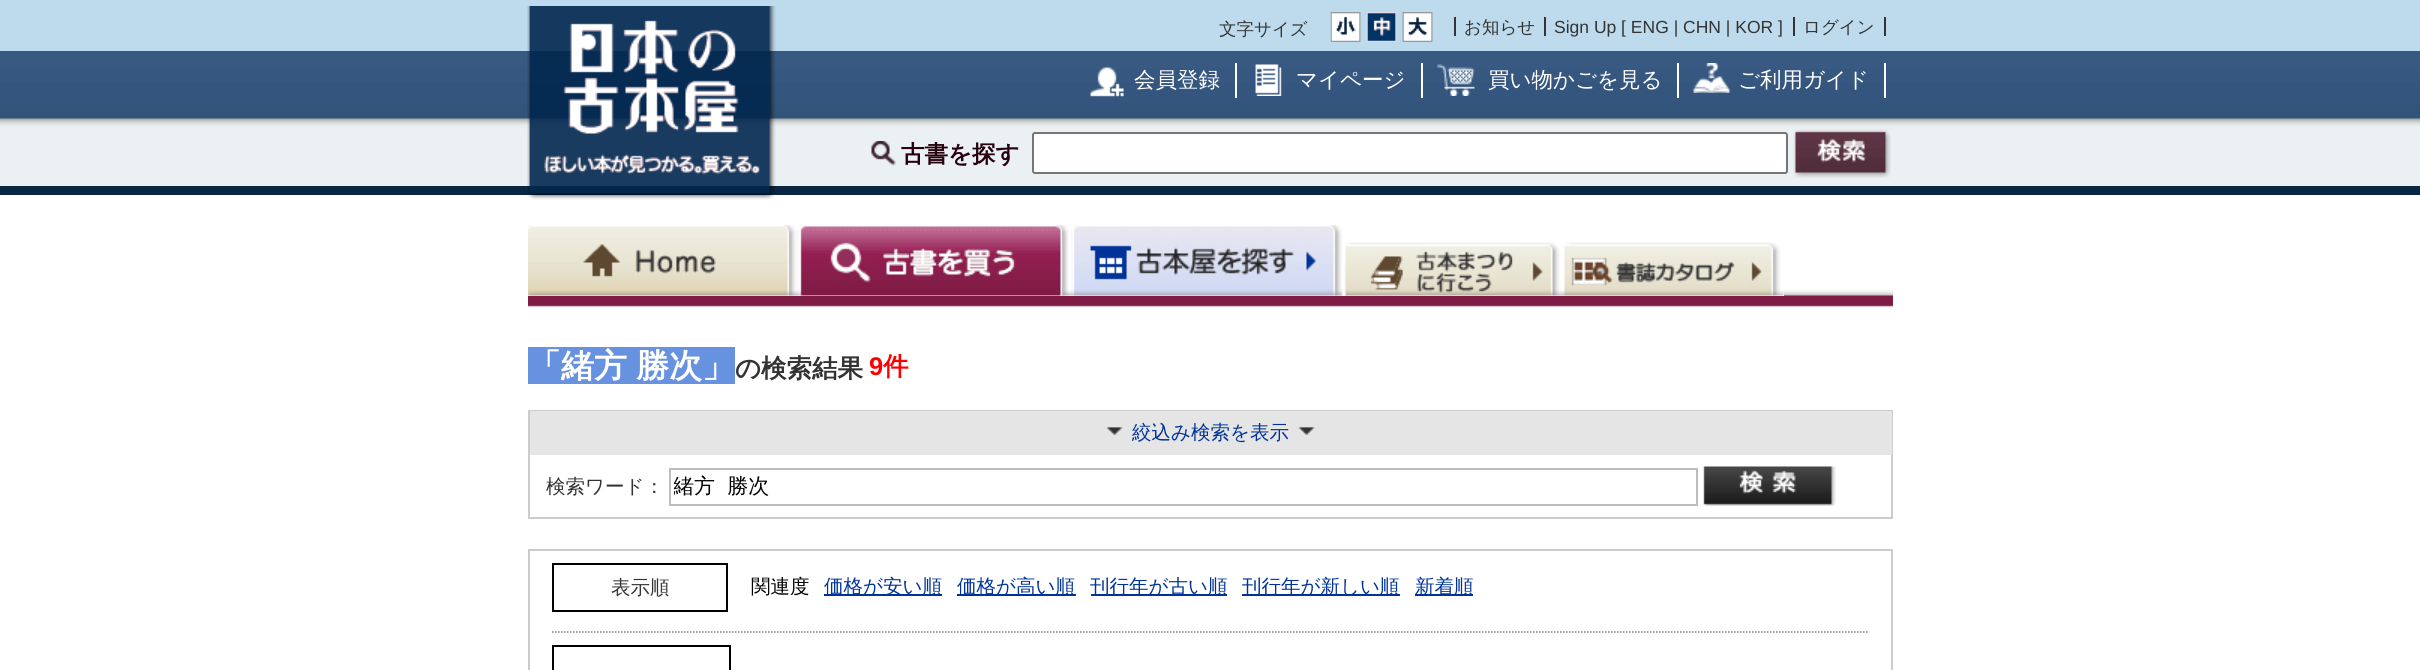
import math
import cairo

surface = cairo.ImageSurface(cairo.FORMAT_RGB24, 2420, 670)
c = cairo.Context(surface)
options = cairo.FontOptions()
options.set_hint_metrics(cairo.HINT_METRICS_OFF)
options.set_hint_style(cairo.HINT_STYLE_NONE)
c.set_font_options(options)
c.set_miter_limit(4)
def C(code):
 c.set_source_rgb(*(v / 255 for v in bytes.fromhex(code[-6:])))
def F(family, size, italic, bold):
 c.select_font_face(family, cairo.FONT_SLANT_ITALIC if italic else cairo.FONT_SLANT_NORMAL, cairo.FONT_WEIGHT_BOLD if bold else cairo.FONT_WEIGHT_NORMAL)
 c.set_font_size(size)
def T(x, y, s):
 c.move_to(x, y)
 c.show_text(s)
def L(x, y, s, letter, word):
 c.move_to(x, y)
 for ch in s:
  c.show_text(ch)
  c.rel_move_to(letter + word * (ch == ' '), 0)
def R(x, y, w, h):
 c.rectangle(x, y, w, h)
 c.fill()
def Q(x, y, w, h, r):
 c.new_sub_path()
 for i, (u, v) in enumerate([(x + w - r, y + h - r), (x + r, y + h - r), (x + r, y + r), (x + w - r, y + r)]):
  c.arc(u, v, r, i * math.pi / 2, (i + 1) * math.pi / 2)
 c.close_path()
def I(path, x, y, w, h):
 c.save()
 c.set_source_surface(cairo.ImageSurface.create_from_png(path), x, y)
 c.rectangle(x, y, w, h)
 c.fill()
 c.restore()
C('ffffff')
c.paint()
C('bddbed')
R(0,0,2420,51)
I('5.png',0,51,2420,78)
C('ebf0f3')
R(0,129,2420,57)
C('092642')
R(0,186,2420,9)
I('1.png',527,6,249,194)
F('WenQuanYi Zen Hei Medium',17.5,0,0)
C('333333')
T(1219,35,'文字サイズ')
I('2.png',1330,12,31,30)
I('3.png',1366,12,31,30)
I('4.png',1402,12,31,30)
R(1454,17,2,19)
T(1464,33,'お知らせ')
R(1544,17,2,19)
F('Liberation Sans',17.5,0,0)
T(1554,33,'Sign Up [ ENG | CHN | KOR ]')
R(1884,17,2,19)
R(1793,17,2,19)
F('WenQuanYi Zen Hei Medium',17.5,0,0)
T(1803,33,'ログイン')
I('6.png',1090,67,34,30)
C('ffffff')
R(1235,63,2,35)
F('WenQuanYi Zen Hei Medium',21.5,0,0)
T(1134,87,'会員登録')
I('7.png',1255,64,27,32)
R(1421,63,2,35)
T(1296,87,'マイページ')
I('8.png',1437,64,38,32)
R(1677,63,2,35)
T(1488,87,'買い物かごを見る')
I('9.png',1693,63,37,30)
R(1884,63,2,35)
T(1738,87,'ご利用ガイド')
I('10.png',871,141,25,25)
F('WenQuanYi Zen Hei',23.5,0,1)
C('26000c')
T(901,162,'古書を探す')
C('ffffff')
Q(1033,133,754,40,2)
c.fill_preserve()
C('767676')
c.stroke()
I('11.png',1793,129,98,49)
I('12.png',528,290,1365,19)
C('ffffff')
R(528,290,272,6)
I('13.png',528,225,272,71)
R(800,295,271,1)
I('14.png',799,225,272,71)
R(1071,290,272,6)
I('15.png',1071,225,272,71)
R(1343,295,220,1)
I('16.png',1342,242,221,54)
R(1563,290,221,6)
I('17.png',1563,242,221,54)
C('6792e0')
R(528,347,207,37)
F('WenQuanYi Zen Hei',33,0,1)
C('ffffff')
L(528,377,'「緒方 勝次」',0,-1)
F('WenQuanYi Zen Hei',25.5,0,1)
C('333333')
T(735,377,'の検索結果')
F('Liberation Sans',25.5,0,1)
C('ff0000')
T(869,375,'9')
F('WenQuanYi Zen Hei',25.5,0,1)
T(883,375,'件')
c.rectangle(529,411,1363,107)
C('cccccc')
c.stroke()
C('e5e5e5')
R(530,411,1362,44)
I('18.png',1106,427,17,8)
I('19.png',1298,427,17,8)
F('WenQuanYi Zen Hei Medium',19.5,0,0)
C('003399')
T(1132,439,'絞込み検索を表示')
C('333333')
T(546,493,'検索ワード：')
c.rectangle(670,469,1027,36)
C('bbbdc2')
c.stroke()
c.save()
c.rectangle(674,473,1020,27)
c.clip()
F('WenQuanYi Zen Hei Medium',21,0,0)
C('000000')
L(673,493,'緒方 勝次',0,6)
c.restore()
I('20.png',1702,466,134,40)
c.rectangle(529,550,1363,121)
C('cccccc')
c.stroke()
c.new_path()
c.move_to(552,632)
c.line_to(1869,632)
C('7c7e7e')
c.set_line_width(1.5)
c.set_dash([1.5,1.5])
c.stroke()
c.rectangle(553,564,174,47)
C('000000')
c.set_line_width(2)
c.set_dash([])
c.stroke()
C('333333')
T(611,594,'表示順')
C('000000')
T(751,593,'関連度')
C('003399')
R(824,594,118,2)
T(824,593,'価格が安い順')
R(957,594,119,2)
T(957,593,'価格が高い順')
R(1091,594,136,2)
T(1090,593,'刊行年が古い順')
R(1242,594,158,2)
T(1242,593,'刊行年が新しい順')
R(1415,594,58,2)
T(1415,593,'新着順')
c.rectangle(553,646,177,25)
C('000000')
c.stroke()
surface.write_to_png('o.png')
